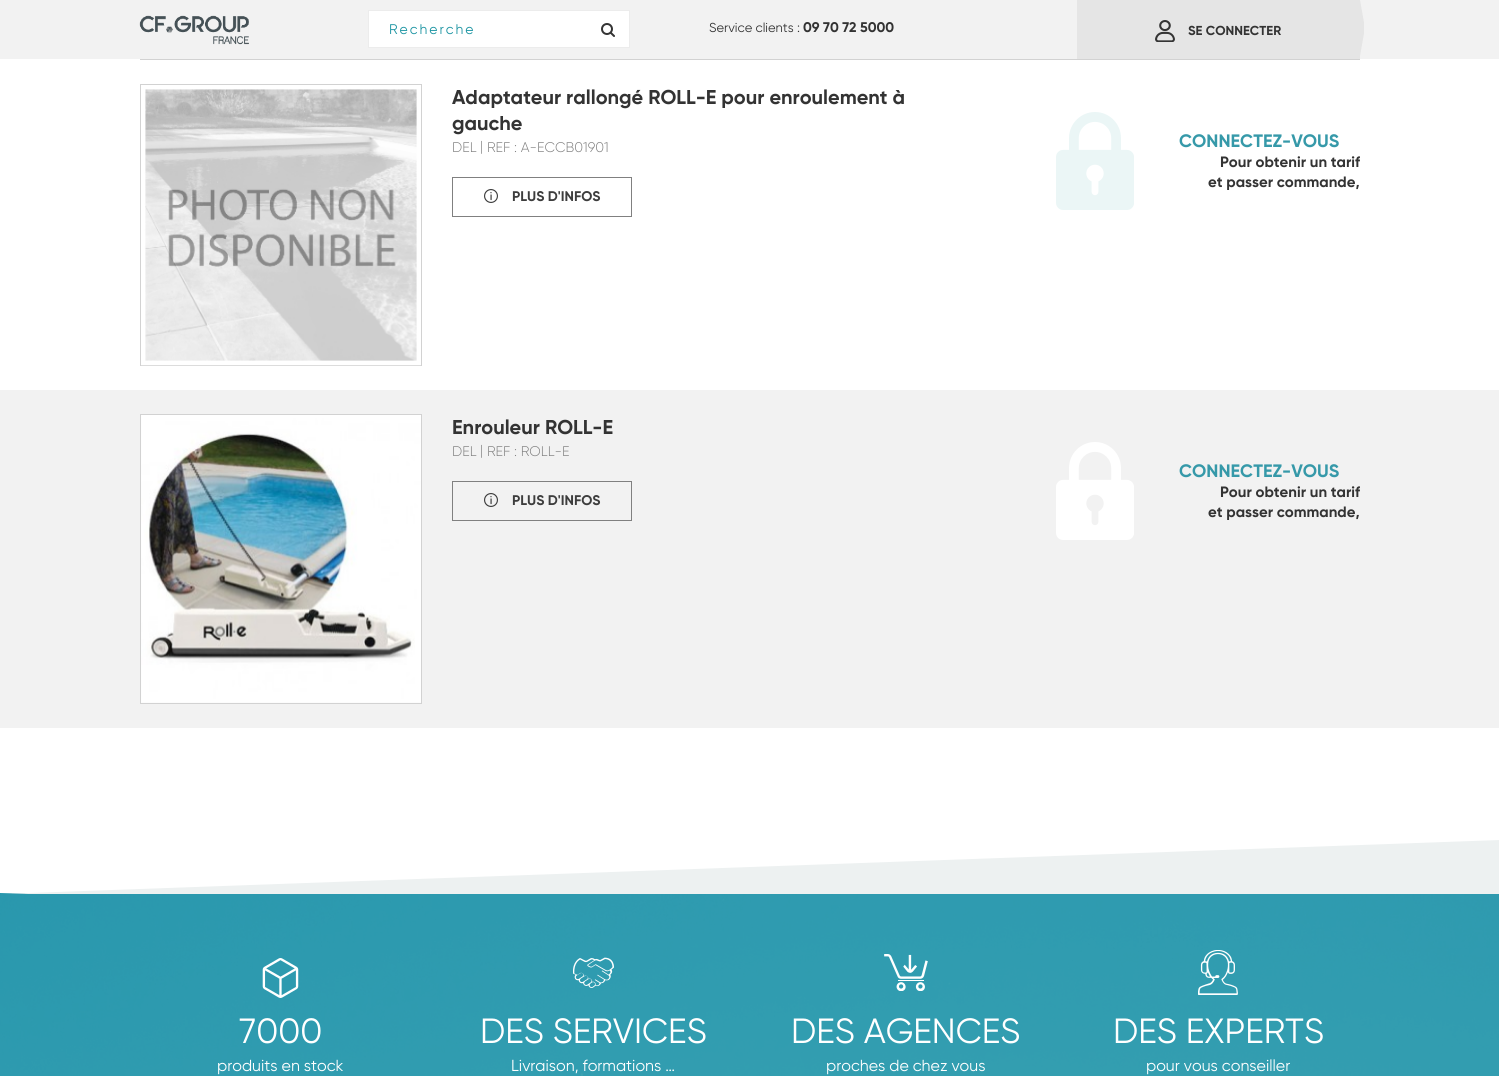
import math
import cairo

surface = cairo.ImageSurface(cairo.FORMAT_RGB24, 1499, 1076)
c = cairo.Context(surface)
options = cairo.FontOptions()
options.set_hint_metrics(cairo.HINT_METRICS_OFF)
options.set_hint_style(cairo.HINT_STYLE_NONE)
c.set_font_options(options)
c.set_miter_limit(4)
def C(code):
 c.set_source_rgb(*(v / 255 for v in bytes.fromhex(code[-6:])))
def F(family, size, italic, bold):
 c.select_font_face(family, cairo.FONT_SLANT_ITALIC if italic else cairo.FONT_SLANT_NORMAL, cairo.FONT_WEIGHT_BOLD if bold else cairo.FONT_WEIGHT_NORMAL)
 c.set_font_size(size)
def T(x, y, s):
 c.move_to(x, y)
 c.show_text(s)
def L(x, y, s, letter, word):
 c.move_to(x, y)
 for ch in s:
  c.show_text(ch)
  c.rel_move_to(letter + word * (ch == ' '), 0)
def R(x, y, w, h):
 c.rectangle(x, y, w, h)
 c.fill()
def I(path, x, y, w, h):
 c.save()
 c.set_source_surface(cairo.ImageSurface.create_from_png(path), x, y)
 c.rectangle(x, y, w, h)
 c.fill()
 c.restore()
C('ffffff')
c.paint()
C('f2f2f2')
R(0,0,1499,59)
I('1.png',139,15,110,30)
C('ffffff')
c.rectangle(368.5,10.5,261,37)
c.fill_preserve()
C('ececec')
c.set_line_width(1)
c.stroke()
F('Gilroy',14,0,0)
C('1e95a3')
L(389,34,'Recherche',2,0)
I('2.png',601,23,14,14)
F('Gilroy',13,0,0)
C('333333')
T(709,32,'Service clients :')
F('Gilroy',14,0,1)
T(803,32,'09 70 72 5000')
C('e5e5e5')
R(1077,0,283,59)
I('3.png',1155,20,20,22)
F('Gilroy',13,0,1)
C('333333')
T(1188,35,'SE CONNECTER')
c.save()
c.rectangle(1360,0,4,56)
c.clip()
C('e5e5e5')
c.new_path()
c.move_to(1360,56)
c.line_to(1365,28)
c.line_to(1360,0)
c.close_path()
c.fill()
c.restore()
C('d2d2d2')
R(140,59,1220,1)
c.rectangle(140.5,84.5,281,281)
c.stroke()
I('4.png',141,89,280,277)
F('Gilroy',20,0,1)
C('333333')
T(452,104,'Adaptateur rallongé ROLL-E pour enroulement à')
T(452,130,'gauche')
F('Gilroy Light',14,0,0)
C('808080')
T(452,152,'DEL')
T(480,151,'|')
T(487,152,'REF : A-ECCB01901')
c.rectangle(452.5,177.5,179,39)
c.stroke()
I('5.png',484,189,14,14)
F('Gilroy',14,0,1)
C('3d3d3d')
T(512,201,'PLUS D\'INFOS')
I('6.png',1056,112,78,98)
F('Gilroy',18,0,1)
C('3699a9')
T(1179,147,'CONNECTEZ-VOUS')
F('Gilroy',15,0,1)
C('333333')
T(1220,167,'Pour obtenir un tarif')
T(1208,187,'et passer commande,')
C('f2f2f2')
R(0,390,1499,338)
c.rectangle(140.5,414.5,281,289)
C('d2d2d2')
c.stroke()
I('7.png',141,415,280,288)
F('Gilroy',20,0,1)
C('333333')
T(452,434,'Enrouleur ROLL-E')
F('Gilroy Light',14,0,0)
C('808080')
T(452,456,'DEL')
T(480,455,'|')
T(487,456,'REF : ROLL-E')
c.rectangle(452.5,481.5,179,39)
c.stroke()
I('8.png',484,493,14,14)
F('Gilroy',14,0,1)
C('3d3d3d')
T(512,505,'PLUS D\'INFOS')
I('9.png',1056,442,78,98)
F('Gilroy',18,0,1)
C('3699a9')
T(1179,477,'CONNECTEZ-VOUS')
F('Gilroy',15,0,1)
C('333333')
T(1220,497,'Pour obtenir un tarif')
T(1208,517,'et passer commande,')
I('10.png',0,893,1499,183)
C('edf1f1')
c.new_path()
c.move_to(1499,840)
c.line_to(1499,894)
c.line_to(0,894)
c.close_path()
c.fill()
I('11.png',262,958,37,40)
F('Gilroy',35,0,0)
C('ffffff')
T(239,1043,'7000')
F('Gilroy',16,0,0)
T(217,1071,'produits en stock')
I('12.png',573,957,41,31)
F('Gilroy',35,0,0)
T(480,1043,'DES SERVICES')
F('Gilroy',16,0,0)
T(511,1071,'Livraison, formations …')
I('13.png',884,954,44,37)
F('Gilroy',35,0,0)
T(791,1043,'DES AGENCES')
F('Gilroy',16,0,0)
T(826,1071,'proches de chez vous')
I('14.png',1198,950,40,45)
F('Gilroy',35,0,0)
T(1113,1043,'DES EXPERTS')
F('Gilroy',16,0,0)
T(1146,1071,'pour vous conseiller')
surface.write_to_png('o.png')
